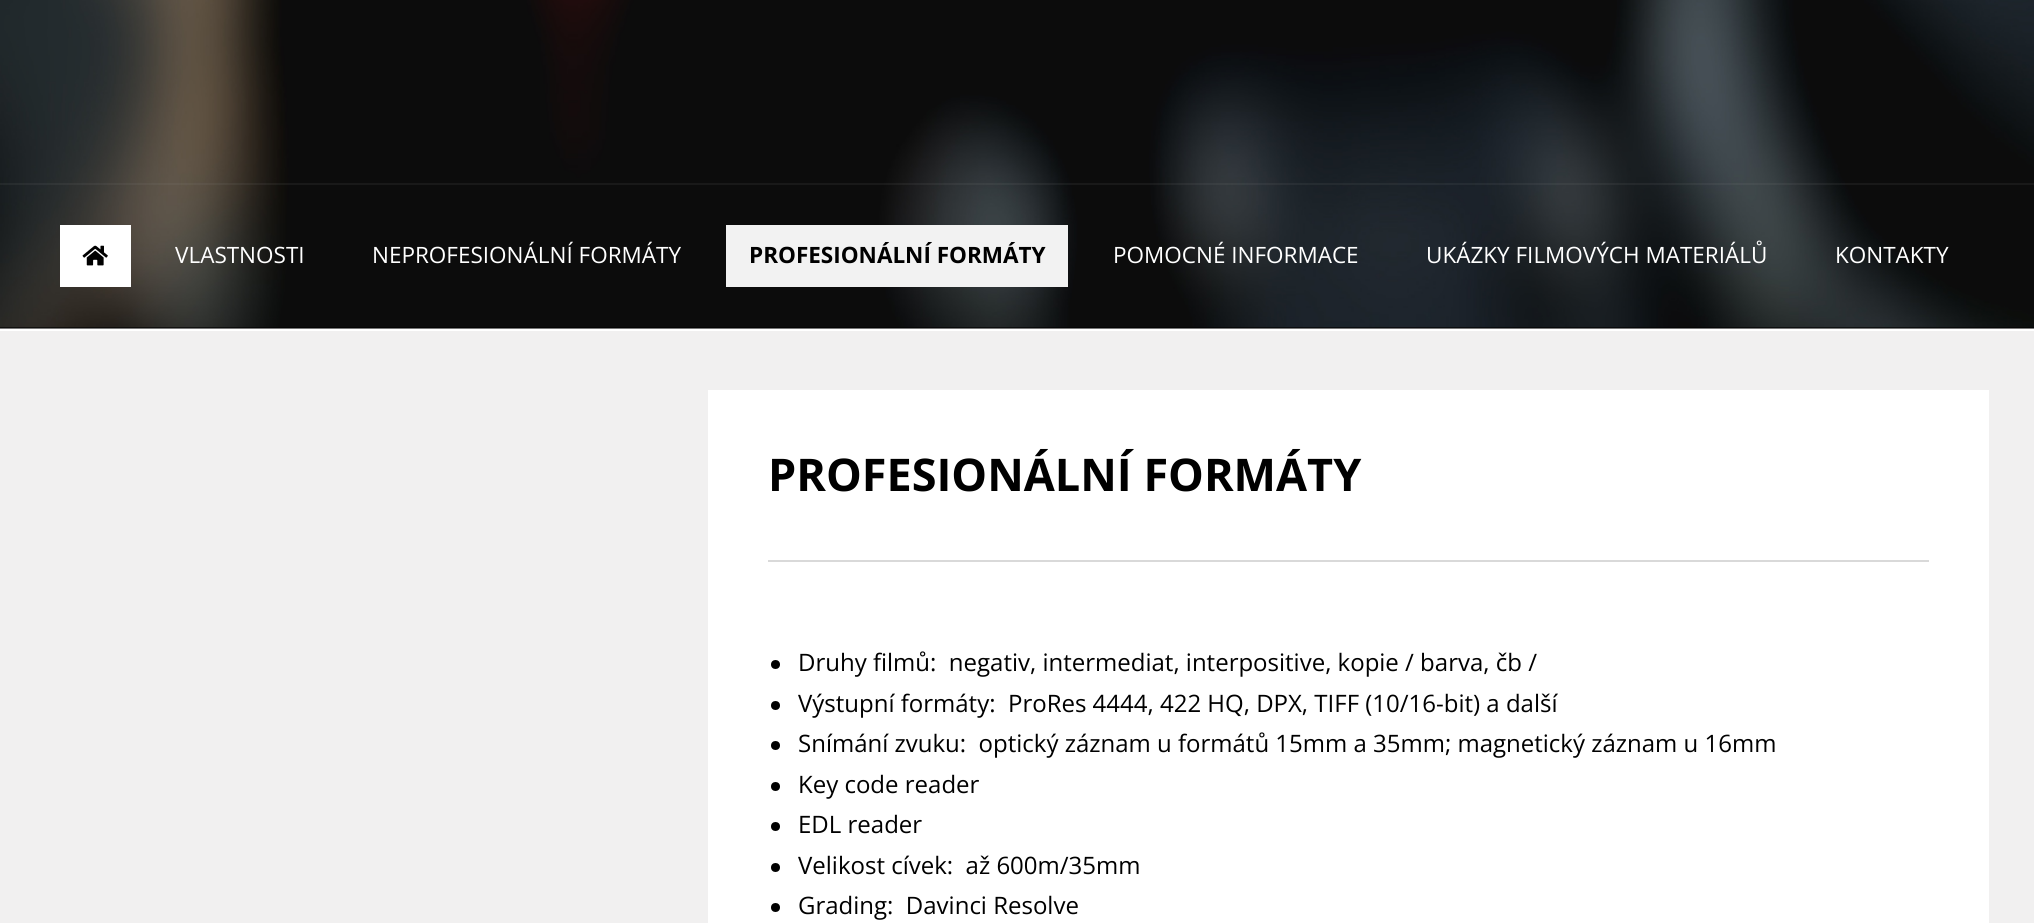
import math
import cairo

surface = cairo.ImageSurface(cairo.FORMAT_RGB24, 2034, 923)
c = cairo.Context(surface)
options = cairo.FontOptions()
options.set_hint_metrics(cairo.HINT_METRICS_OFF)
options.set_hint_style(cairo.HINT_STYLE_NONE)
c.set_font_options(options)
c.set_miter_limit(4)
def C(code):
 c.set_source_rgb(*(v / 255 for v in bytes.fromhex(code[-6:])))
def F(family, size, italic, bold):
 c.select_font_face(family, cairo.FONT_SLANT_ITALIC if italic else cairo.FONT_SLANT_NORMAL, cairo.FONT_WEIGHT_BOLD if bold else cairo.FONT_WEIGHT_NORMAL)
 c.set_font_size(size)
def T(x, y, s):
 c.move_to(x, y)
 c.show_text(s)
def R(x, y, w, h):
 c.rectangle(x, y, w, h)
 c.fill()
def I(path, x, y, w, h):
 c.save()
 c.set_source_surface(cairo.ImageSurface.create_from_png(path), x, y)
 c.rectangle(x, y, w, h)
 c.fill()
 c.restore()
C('f1f0f0')
c.paint()
I('1.png',0,0,2034,329)
C('ffffff')
R(0,329,2034,2)
c.set_source_rgba(0.557,0.557,0.557,0.1)
R(0,183,2034,2)
C('ffffff')
R(60,225,71,62)
I('2.png',82,245,26,21)
F('Open Sans',22.5,0,0)
T(175,263,'VLASTNOSTI')
T(372,263,'NEPROFESIONÁLNÍ FORMÁTY')
C('f2f2f2')
R(726,225,342,62)
F('Open Sans',22.5,0,1)
C('000000')
T(749,263,'PROFESIONÁLNÍ FORMÁTY')
F('Open Sans',22.5,0,0)
C('ffffff')
T(1113,263,'POMOCNÉ INFORMACE')
T(1426,263,'UKÁZKY FILMOVÝCH MATERIÁLŮ')
T(1835,263,'KONTAKTY')
R(708,390,1281,533)
C('d9d9d9')
R(768,560,1161,2)
F('Open Sans',45,0,1)
C('000000')
T(768,491,'PROFESIONÁLNÍ FORMÁTY')
c.new_path()
c.arc(775.5,664.5,4.5,0,2 * math.pi)
c.fill()
F('Open Sans',24,0,0)
T(798,671,'Druhy filmů:  negativ, intermediat, interpositive, kopie / barva, čb /')
c.new_path()
c.arc(775.5,705.5,4.5,0,2 * math.pi)
c.fill()
T(798,712,'Výstupní formáty:  ProRes 4444, 422 HQ, DPX, TIFF (10/16-bit) a další')
c.new_path()
c.arc(775.5,745.5,4.5,0,2 * math.pi)
c.fill()
T(798,752,'Snímání zvuku:  optický záznam u formátů 15mm a 35mm; magnetický záznam u 16mm')
c.new_path()
c.arc(775.5,786.5,4.5,0,2 * math.pi)
c.fill()
T(798,793,'Key code reader')
c.new_path()
c.arc(775.5,826.5,4.5,0,2 * math.pi)
c.fill()
T(798,833,'EDL reader')
c.new_path()
c.arc(775.5,867.5,4.5,0,2 * math.pi)
c.fill()
T(798,874,'Velikost cívek:  až 600m/35mm')
c.new_path()
c.arc(775.5,907.5,4.5,0,2 * math.pi)
c.fill()
T(798,914,'Grading:  Davinci Resolve')
surface.write_to_png('o.png')
